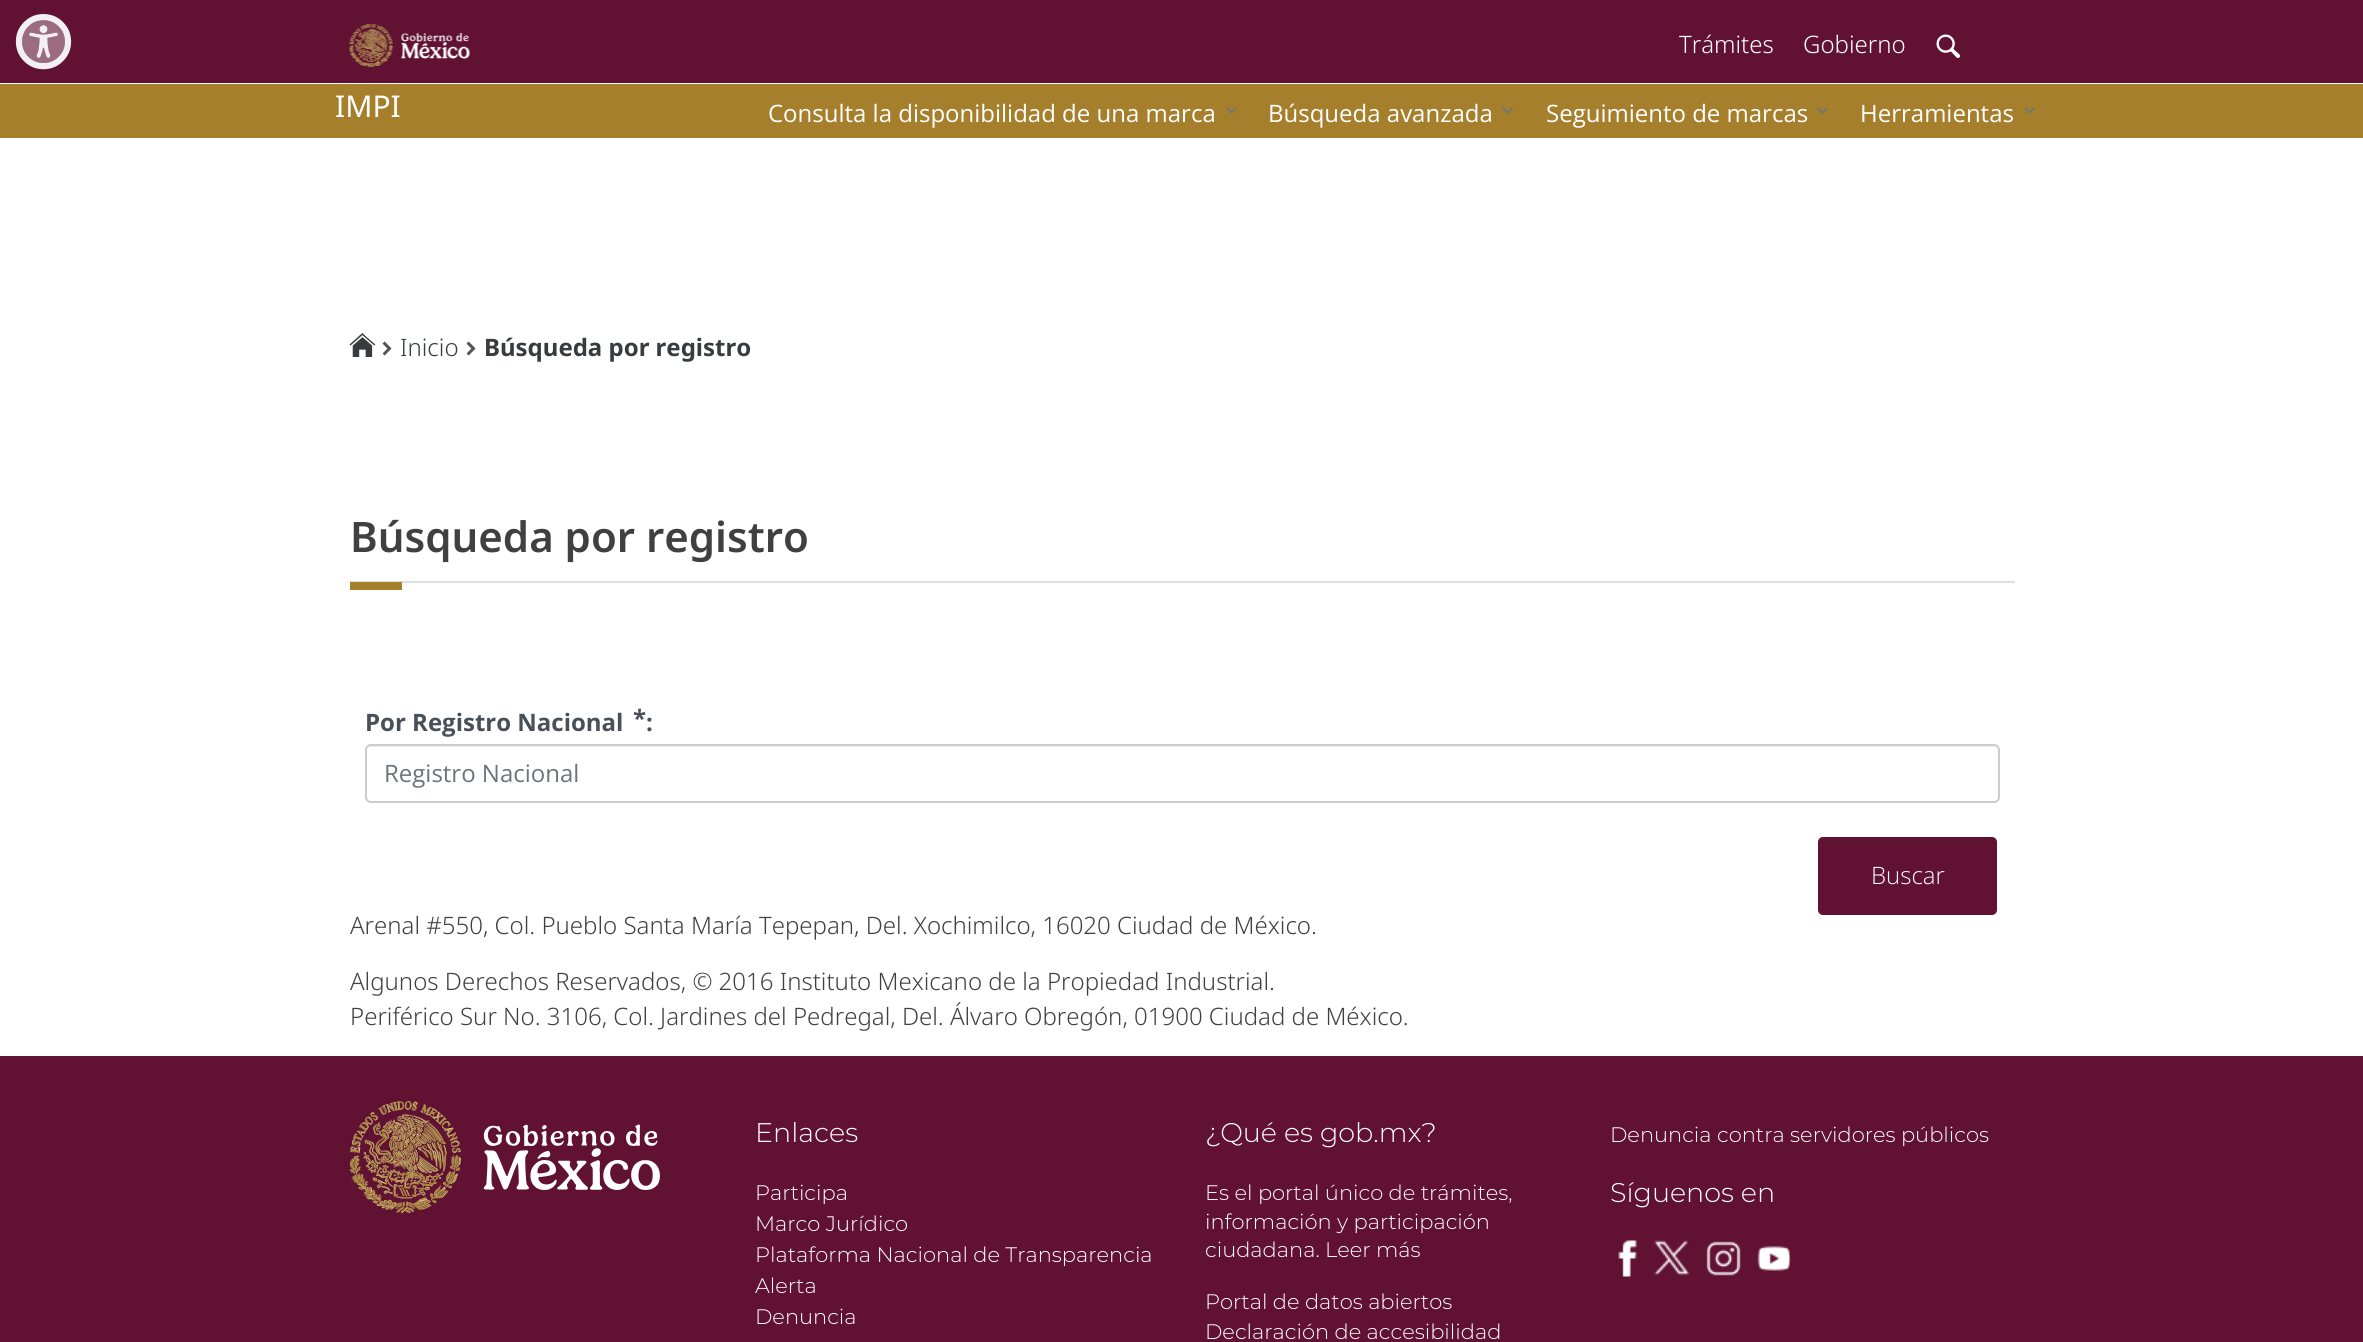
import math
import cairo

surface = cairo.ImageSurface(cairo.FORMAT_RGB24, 2363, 1342)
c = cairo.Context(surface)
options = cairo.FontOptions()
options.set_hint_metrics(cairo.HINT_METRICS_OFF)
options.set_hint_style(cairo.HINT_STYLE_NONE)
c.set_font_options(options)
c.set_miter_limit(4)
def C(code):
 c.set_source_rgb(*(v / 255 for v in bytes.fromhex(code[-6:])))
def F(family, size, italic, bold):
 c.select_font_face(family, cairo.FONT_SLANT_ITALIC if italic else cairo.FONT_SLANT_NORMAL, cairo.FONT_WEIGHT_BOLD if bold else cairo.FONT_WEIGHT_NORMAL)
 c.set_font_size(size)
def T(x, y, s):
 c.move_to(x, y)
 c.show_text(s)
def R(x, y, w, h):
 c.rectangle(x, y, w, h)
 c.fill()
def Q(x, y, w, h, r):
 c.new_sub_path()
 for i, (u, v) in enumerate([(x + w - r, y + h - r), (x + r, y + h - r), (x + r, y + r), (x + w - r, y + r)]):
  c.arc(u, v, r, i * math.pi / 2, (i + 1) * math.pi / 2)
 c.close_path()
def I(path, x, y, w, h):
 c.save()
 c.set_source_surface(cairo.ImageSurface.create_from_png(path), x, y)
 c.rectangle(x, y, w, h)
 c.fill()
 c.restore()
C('ffffff')
c.paint()
C('611232')
R(0,0,2363,83)
I('1.png',15,14,57,56)
I('2.png',22,20,43,43)
I('3.png',349,24,121,44)
F('Noto Sans Light',24,0,0)
C('ffffff')
T(1679,53,'Trámites')
T(1803,53,'Gobierno')
I('4.png',1936,34,24,24)
C('a57f2c')
R(0,84,2363,54)
F('Noto Sans',30,0,0)
C('ffffff')
T(335,117,'IMPI')
F('Open Sans',24,0,0)
T(768,122,'Consulta la disponibilidad de una marca')
I('5.png',1226,107,11,7)
T(1268,122,'Búsqueda avanzada')
I('5.png',1502,107,11,7)
T(1546,122,'Seguimiento de marcas')
I('5.png',1817,107,11,7)
T(1860,122,'Herramientas')
I('5.png',2024,107,11,7)
I('6.png',349,333,27,24)
I('7.png',382,341,10,15)
F('Noto Sans Light',24,0,0)
C('393c3e')
T(400,356,'Inicio')
I('7.png',466,341,10,15)
F('Noto Sans',24,0,1)
T(484,356,'Búsqueda por registro')
F('Noto Sans SemiBold',42,0,0)
C('404041')
T(350,552,'Búsqueda por registro')
C('dce0e0')
R(350,581,1665,2)
C('a57f2c')
R(350,582,52,8)
F('Open Sans',24,0,1)
C('495057')
T(365,731,'Por Registro Nacional')
T(633,727,'*')
T(646,731,':')
C('ececec')
c.new_path()
c.move_to(370,747)
c.line_to(1994,747)
c.curve_to(1996,747,1998,749,1998,752)
c.line_to(1998,751)
c.curve_to(1998,748,1996,746,1993,746)
c.line_to(371,746)
c.curve_to(368,746,366,748,366,751)
c.line_to(366,752)
c.curve_to(366,749,368,747,370,747)
c.close_path()
c.fill()
Q(366,745,1633,57,5)
C('cccccc')
c.stroke()
F('Open Sans',24,0,0)
C('6c757d')
T(384,782,'Registro Nacional')
C('611232')
Q(1818,837,179,78,5)
c.fill()
F('Open Sans Light',24,0,0)
C('ffffff')
T(1871,884,'Buscar')
F('Noto Sans Light',24,0,0)
C('404041')
T(350,934,'Arenal #550, Col. Pueblo Santa María Tepepan, Del. Xochimilco, 16020 Ciudad de México.')
T(350,990,'Algunos Derechos Reservados, © 2016 Instituto Mexicano de la Propiedad Industrial.')
T(350,1025,'Periférico Sur No. 3106, Col. Jardines del Pedregal, Del. Álvaro Obregón, 01900 Ciudad de México.')
C('611232')
R(0,1056,2363,286)
I('8.png',350,1101,310,113)
F('Montserrat Light',27,0,0)
C('ffffff')
T(755,1142,'Enlaces')
F('Montserrat Light',21,0,0)
T(755,1200,'Participa')
T(755,1231,'Marco Jurídico')
T(755,1262,'Plataforma Nacional de Transparencia')
T(755,1293,'Alerta')
T(755,1324,'Denuncia')
F('Montserrat Light',27,0,0)
T(1205,1142,'¿Qué es gob.mx?')
F('Montserrat Light',21,0,0)
T(1205,1200,'Es el portal único de trámites,')
T(1205,1229,'información y participación')
T(1205,1257,'ciudadana. Leer más')
T(1205,1309,'Portal de datos abiertos')
T(1205,1339,'Declaración de accesibilidad')
T(1610,1142,'Denuncia contra servidores públicos')
F('Montserrat Light',27,0,0)
T(1610,1202,'Síguenos en')
I('9.png',1618,1240,19,37)
I('10.png',1654,1240,36,36)
I('11.png',1706,1241,35,35)
I('12.png',1757,1246,34,25)
surface.write_to_png('o.png')
